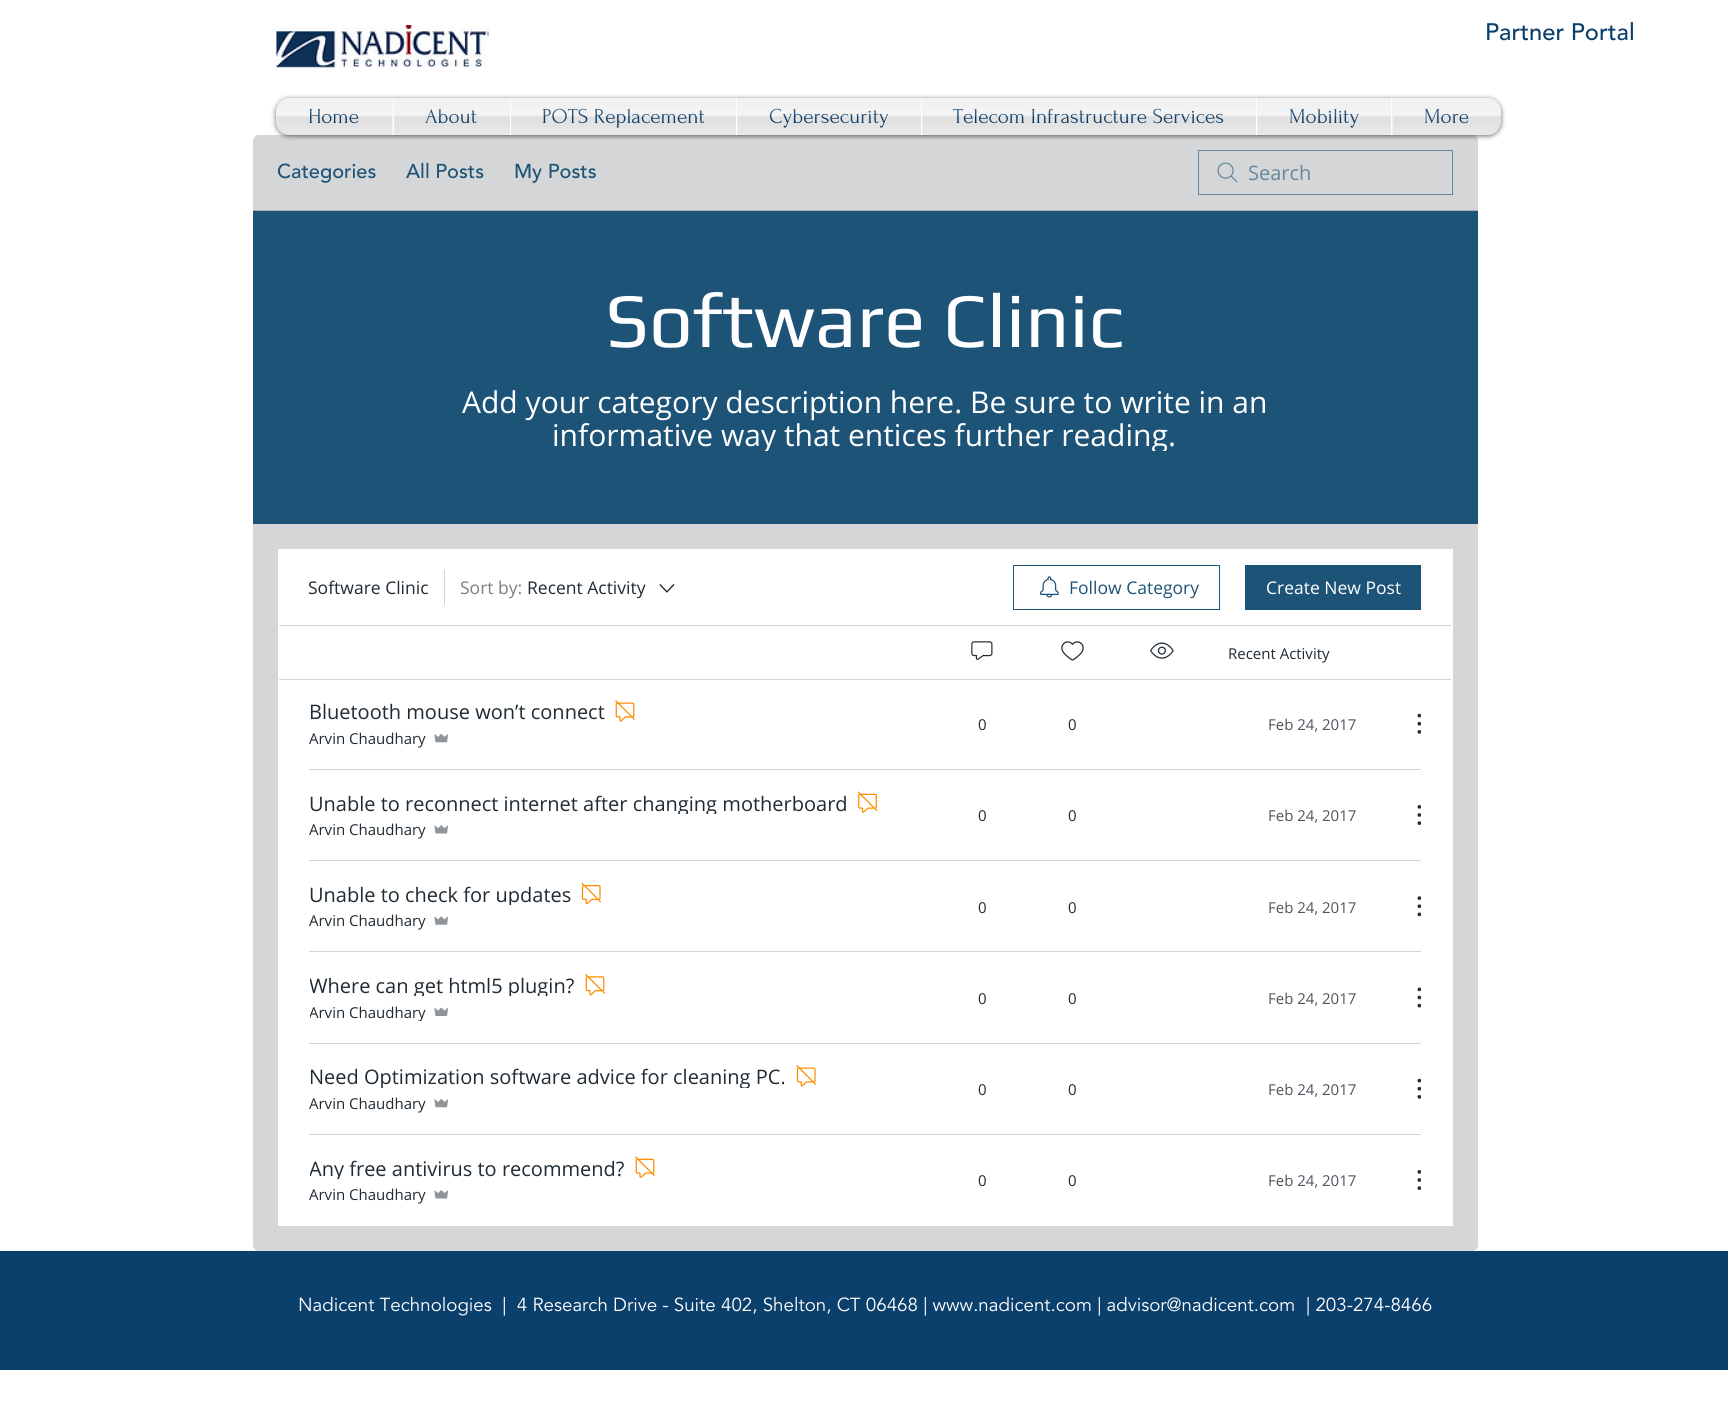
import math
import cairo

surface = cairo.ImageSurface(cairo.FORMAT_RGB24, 1728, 1420)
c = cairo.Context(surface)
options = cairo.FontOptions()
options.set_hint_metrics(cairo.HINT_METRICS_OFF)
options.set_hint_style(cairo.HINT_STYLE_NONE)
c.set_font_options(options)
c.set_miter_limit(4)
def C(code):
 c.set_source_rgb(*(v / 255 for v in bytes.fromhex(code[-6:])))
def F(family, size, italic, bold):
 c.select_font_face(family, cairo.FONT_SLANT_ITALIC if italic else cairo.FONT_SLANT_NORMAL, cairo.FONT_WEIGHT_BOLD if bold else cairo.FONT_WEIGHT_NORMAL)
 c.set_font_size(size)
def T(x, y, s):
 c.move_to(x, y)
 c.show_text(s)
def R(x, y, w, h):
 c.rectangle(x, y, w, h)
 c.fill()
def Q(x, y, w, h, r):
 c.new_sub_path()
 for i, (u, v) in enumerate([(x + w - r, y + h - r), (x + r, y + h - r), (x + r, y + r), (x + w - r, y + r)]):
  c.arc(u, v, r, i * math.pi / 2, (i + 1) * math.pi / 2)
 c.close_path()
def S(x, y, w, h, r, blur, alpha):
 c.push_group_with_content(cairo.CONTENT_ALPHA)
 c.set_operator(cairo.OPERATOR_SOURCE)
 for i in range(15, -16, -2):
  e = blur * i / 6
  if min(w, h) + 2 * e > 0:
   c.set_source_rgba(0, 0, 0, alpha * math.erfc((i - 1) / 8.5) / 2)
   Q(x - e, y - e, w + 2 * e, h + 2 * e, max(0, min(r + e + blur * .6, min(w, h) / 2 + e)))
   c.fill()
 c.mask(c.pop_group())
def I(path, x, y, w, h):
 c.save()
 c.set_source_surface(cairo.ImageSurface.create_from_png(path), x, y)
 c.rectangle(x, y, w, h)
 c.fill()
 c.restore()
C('ffffff')
c.paint()
I('1.png',276,25,213,43)
F('Avenir Medium',23.75,0,0)
C('0b406d')
T(1485,40,'Partner Portal')
C('d4d6d7')
Q(253.5,135.5,1224,1115,5.5)
c.fill_preserve()
c.set_line_width(1)
c.stroke()
C('000000')
S(276,99,1225,37,13,2.5,.6)
I('2.png',276,122,1225,13)
C('f1f1f1')
c.new_path()
c.move_to(289,98)
c.line_to(393,98)
c.line_to(393,135)
c.line_to(289,135)
c.curve_to(282,135,276,129,276,122)
c.line_to(276,111)
c.curve_to(276,104,282,98,289,98)
c.close_path()
c.fill()
F('Forum',21.25,0,0)
C('0b406d')
T(308,123,'Home')
I('3.png',276,109,116,26)
C('f1f1f1')
R(394,98,116,37)
C('ffffff')
R(393,98,1,37)
C('0b406d')
T(425,123,'About')
I('4.png',394,109,116,26)
C('f1f1f1')
R(511,98,225,37)
C('ffffff')
R(510,98,1,37)
C('0b406d')
T(542,123,'POTS Replacement')
I('5.png',511,108,225,27)
C('f1f1f1')
R(737,98,184,37)
C('ffffff')
R(736,98,1,37)
C('0b406d')
T(769,123,'Cybersecurity')
I('6.png',737,108,184,27)
C('f1f1f1')
R(922,98,334,37)
C('ffffff')
R(921,98,1,37)
C('0b406d')
T(953,123,'Telecom Infrastructure Services')
I('7.png',922,108,334,27)
C('f1f1f1')
R(1257,98,134,37)
C('ffffff')
R(1256,98,1,37)
C('0b406d')
T(1289,123,'Mobility')
I('8.png',1257,109,134,26)
C('f1f1f1')
c.new_path()
c.move_to(1391,98)
c.line_to(1488,98)
c.curve_to(1495,98,1501,104,1501,111)
c.line_to(1501,122)
c.curve_to(1501,129,1495,135,1488,135)
c.line_to(1391,135)
c.close_path()
c.fill()
C('ffffff')
R(1391,98,1,37)
C('0b406d')
T(1424,123,'More')
I('9.png',1393,109,108,26)
C('aeb0b2')
R(253,210,1225,1)
F('Avenir Medium',20,0,0)
C('1d5377')
T(277,178,'Categories')
T(406,178,'All Posts')
T(514,178,'My Posts')
I('10.png',1217,162,21,21)
c.rectangle(1198.5,150.5,254,44)
C('66879d')
c.stroke()
F('Open Sans',20,0,0)
T(1248,180,'Search')
C('1d5377')
R(253,211,1225,313)
F('Play',77.5,0,0)
C('ffffff')
T(605,347,'Software Clinic')
F('Open Sans',30,0,0)
T(462,413,'Add your category description here. Be sure to write in an')
c.save()
c.rectangle(440,386,850,65)
c.clip()
T(552,446,'informative way that entices further reading.')
c.restore()
R(278,549,1175,677)
F('Open Sans',17.5,0,0)
C('202b33')
T(308,594,'Software Clinic')
C('d2d5d6')
R(444,570,1,35)
C('798085')
T(460,594,'Sort by:')
C('202b33')
T(527,594,'Recent Activity')
I('11.png',659,584,16,9)
c.rectangle(1013.5,565.5,206,44)
C('1d5377')
c.stroke()
I('12.png',1040,576,19,22)
T(1069,594,'Follow Category')
R(1245,565,176,45)
C('ffffff')
T(1266,594,'Create New Post')
C('d2d5d6')
R(279,625,1172,1)
I('13.png',971,641,22,19)
I('14.png',1061,641,23,20)
I('15.png',1150,642,24,17)
F('Open Sans',15,0,0)
C('202b33')
T(1228,659,'Recent Activity')
C('d2d5d6')
R(279,679,1172,1)
F('Open Sans',20,0,0)
C('202b33')
T(309,719,'Bluetooth mouse won’t connect')
I('16.png',615,700,20,22)
F('Open Sans',15,0,0)
T(309,744,'Arvin Chaudhary')
I('17.png',434,733,14,10)
T(978,730,'0')
T(1068,730,'0')
C('4d555c')
T(1268,730,'Feb 24, 2017')
I('18.png',1417,713,4,21)
C('d2d5d6')
R(309,769,1112,1)
c.save()
c.rectangle(310,794,538,20)
c.clip()
F('Open Sans',20,0,0)
C('202b33')
T(309,811,'Unable to reconnect internet after changing motherboard')
c.restore()
I('19.png',858,791,20,22)
C('202b33')
T(309,835,'Arvin Chaudhary')
I('20.png',434,825,14,9)
T(978,821,'0')
T(1068,821,'0')
C('4d555c')
T(1268,821,'Feb 24, 2017')
I('21.png',1417,805,4,20)
C('d2d5d6')
R(309,860,1112,1)
c.save()
c.rectangle(310,885,261,20)
c.clip()
F('Open Sans',20,0,0)
C('202b33')
T(309,902,'Unable to check for updates')
c.restore()
I('22.png',581,883,20,22)
C('202b33')
T(309,926,'Arvin Chaudhary')
I('23.png',434,916,14,9)
T(978,913,'0')
T(1068,913,'0')
C('4d555c')
T(1268,913,'Feb 24, 2017')
I('24.png',1417,896,4,21)
C('d2d5d6')
R(309,951,1112,1)
c.save()
c.rectangle(310,976,265,20)
c.clip()
F('Open Sans',20,0,0)
C('202b33')
T(309,993,'Where can get html5 plugin?')
c.restore()
I('25.png',585,974,20,22)
c.save()
c.rectangle(310,1001,116,20)
c.clip()
C('202b33')
T(309,1018,'Arvin Chaudhary')
c.restore()
I('26.png',434,1007,15,9)
C('202b33')
T(978,1004,'0')
T(1068,1004,'0')
C('4d555c')
T(1268,1004,'Feb 24, 2017')
I('27.png',1417,987,4,21)
C('d2d5d6')
R(309,1043,1112,1)
c.save()
c.rectangle(310,1068,476,20)
c.clip()
F('Open Sans',20,0,0)
C('202b33')
T(309,1084,'Need Optimization software advice for cleaning PC.')
c.restore()
I('28.png',796,1065,20,22)
C('202b33')
T(309,1109,'Arvin Chaudhary')
I('17.png',434,1098,14,10)
T(978,1095,'0')
T(1068,1095,'0')
C('4d555c')
T(1268,1095,'Feb 24, 2017')
I('18.png',1417,1078,4,21)
C('d2d5d6')
R(309,1134,1112,1)
c.save()
c.rectangle(310,1159,315,20)
c.clip()
F('Open Sans',20,0,0)
C('202b33')
T(309,1176,'Any free antivirus to recommend?')
c.restore()
I('29.png',635,1156,20,22)
C('202b33')
T(309,1200,'Arvin Chaudhary')
I('20.png',434,1190,14,9)
T(978,1186,'0')
T(1068,1186,'0')
C('4d555c')
T(1268,1186,'Feb 24, 2017')
I('21.png',1417,1170,4,20)
C('0b406d')
R(0,1251,1728,119)
F('Avenir',18.75,0,0)
C('ffffff')
T(298,1311,'Nadicent Technologies  |  4 Research Drive - Suite 402, Shelton, CT 06468 | www.nadicent.com | advisor@nadicent.com')
T(1306,1311,'| 203-274-8466')
surface.write_to_png('o.png')
